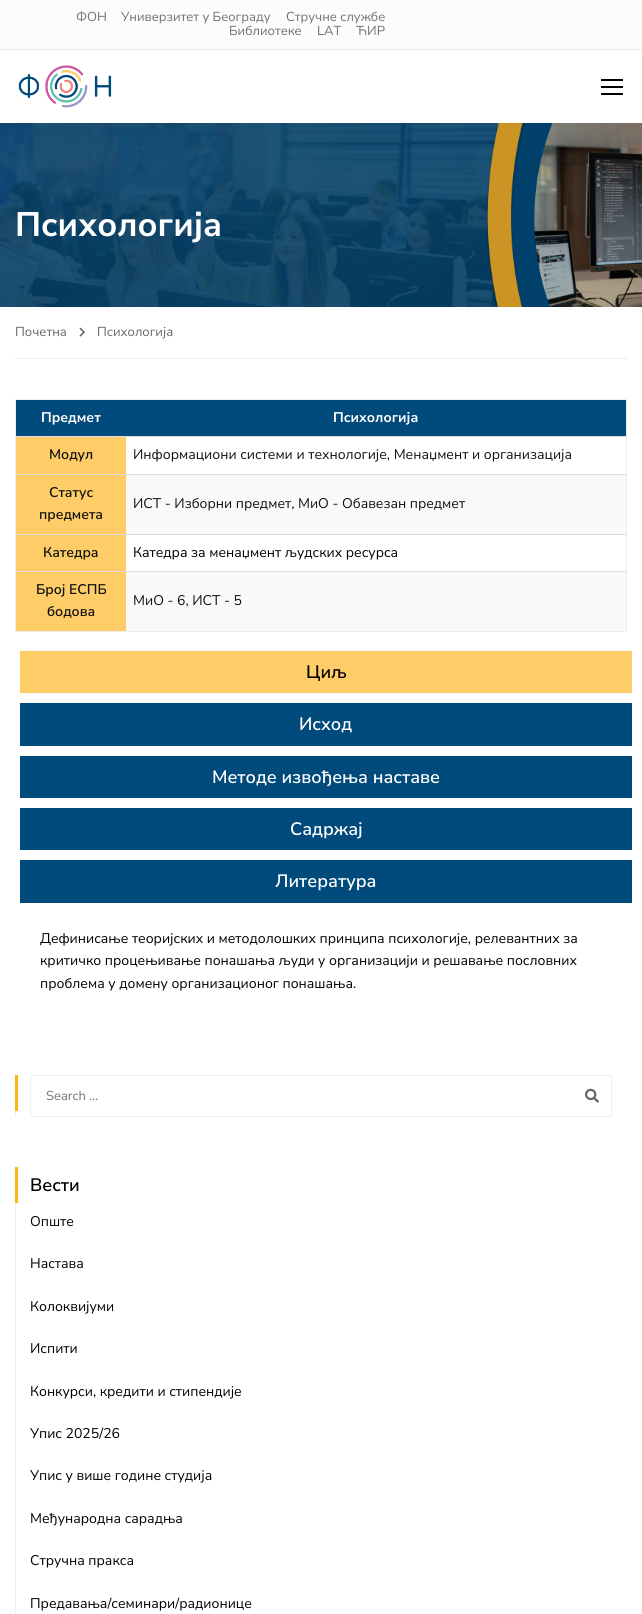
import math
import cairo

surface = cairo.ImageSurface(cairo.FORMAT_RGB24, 642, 1614)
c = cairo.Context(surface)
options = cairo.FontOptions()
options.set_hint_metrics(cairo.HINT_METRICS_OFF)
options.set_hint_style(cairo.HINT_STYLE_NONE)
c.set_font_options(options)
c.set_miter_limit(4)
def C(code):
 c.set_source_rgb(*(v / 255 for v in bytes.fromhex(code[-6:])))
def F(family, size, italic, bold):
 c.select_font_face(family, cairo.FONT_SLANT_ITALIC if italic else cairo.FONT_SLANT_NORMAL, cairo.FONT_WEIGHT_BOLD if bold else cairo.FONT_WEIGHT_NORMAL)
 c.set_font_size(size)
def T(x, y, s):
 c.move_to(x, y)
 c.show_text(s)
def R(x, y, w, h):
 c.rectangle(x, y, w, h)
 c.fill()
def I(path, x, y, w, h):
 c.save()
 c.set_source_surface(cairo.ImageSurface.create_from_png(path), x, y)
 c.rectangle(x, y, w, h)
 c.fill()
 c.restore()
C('ffffff')
c.paint()
C('fcfcfc')
R(0,0,642,49)
C('eaeaea')
R(0,49,642,1)
F('Nunito Sans',13,0,0)
C('74716a')
T(76,21,'ФОН')
T(121,21,'Универзитет у Београду')
T(286,21,'Стручне службе')
T(229,35,'Библиотеке')
T(317,35,'LAT')
T(356,35,'ЋИР')
I('1.png',18,65,94,43)
C('000000')
R(601,79,22,2)
R(601,86,22,2)
R(601,93,22,2)
I('2.png',0,123,642,184)
F('Nunito Sans',34,0,1)
C('ffffff')
T(15,236,'Психологија')
C('eeeeee')
R(15,358,612,1)
F('Nunito Sans',13,0,0)
C('666666')
T(15,336,'Почетна')
I('3.png',79,327,6,10)
T(97,336,'Психологија')
C('eeeeee')
R(15,399,612,1)
R(626,436,1,196)
R(626,399,1,38)
R(15,631,612,1)
R(15,436,1,196)
R(15,399,1,38)
C('014a7c')
R(16,400,610,36)
F('Nunito Sans',14,0,1)
C('ffffff')
T(41,422,'Предмет')
T(333,422,'Психологија')
C('fecd67')
R(16,437,110,37)
F('Nunito Sans SemiBold',14,0,0)
C('111111')
T(49,459,'Модул')
C('dddddd')
R(15,436,612,1)
F('Nunito Sans',14,0,0)
C('111111')
T(133,459,'Информациони системи и технологије, Менаџмент и организација')
C('fecd67')
R(16,475,110,59)
F('Nunito Sans SemiBold',14,0,0)
C('111111')
T(49,497,'Статус')
T(39,519,'предмета')
C('f9f9f9')
R(126,475,500,59)
C('dddddd')
R(15,474,612,1)
F('Nunito Sans',14,0,0)
C('111111')
T(133,508,'ИСТ - Изборни предмет, МиО - Обавезан предмет')
C('fecd67')
R(16,535,110,36)
F('Nunito Sans SemiBold',14,0,0)
C('111111')
T(43,557,'Катедра')
C('dddddd')
R(15,534,612,1)
F('Nunito Sans',14,0,0)
C('000000')
T(133,557,'Катедра за менаџмент људских ресурса')
C('fecd67')
R(16,572,110,59)
F('Nunito Sans SemiBold',14,0,0)
C('111111')
T(36,594,'Број ЕСПБ')
T(47,616,'бодова')
C('f9f9f9')
R(126,572,500,59)
C('dddddd')
R(15,571,612,1)
F('Nunito Sans',14,0,0)
C('111111')
T(133,605,'MиО - 6, ИСТ - 5')
C('fecd67')
R(20,651,612,42)
F('Nunito Sans SemiBold',18,0,0)
C('000000')
T(306,678,'Циљ')
C('014a7c')
R(20,703,612,43)
C('ffffff')
T(299,730,'Исход')
C('014a7c')
R(20,756,612,42)
C('ffffff')
T(212,783,'Методе извођења наставе')
C('014a7c')
R(20,808,612,42)
C('ffffff')
T(290,835,'Садржај')
C('014a7c')
R(20,860,612,43)
C('ffffff')
T(275,887,'Литература')
F('Nunito Sans',14,0,0)
C('000000')
T(40,943,'Дефинисање теоријских и методолошких принципа психологије, релевантних за')
T(40,965,'критичко процењивање понашања људи у организацији и решавање пословних')
T(40,988,'проблема у домену организационог понашања.')
C('ffb31a')
R(15,1075,3,36)
c.rectangle(30.5,1075.5,581,41)
C('eeeeee')
c.set_line_width(1)
c.stroke()
F('Nunito Sans',13,0,0)
C('757575')
T(46,1100,'Search …')
I('4.png',585,1088,14,15)
C('eeeeee')
R(15,1111,1,6)
C('ffb31a')
R(15,1167,3,36)
F('Nunito Sans SemiBold',18,0,0)
C('000000')
T(30,1191,'Вести')
C('eeeeee')
R(15,1203,1,411)
F('Nunito Sans',14,0,0)
C('000000')
T(30,1226,'Опште')
T(30,1268,'Настава')
T(30,1311,'Колоквијуми')
T(30,1353,'Испити')
T(30,1396,'Конкурси, кредити и стипендије')
T(30,1438,'Упис 2025/26')
T(30,1480,'Упис у више године студија')
T(30,1523,'Међународна сарадња')
T(30,1565,'Стручна пракса')
T(30,1608,'Предавања/семинари/радионице')
surface.write_to_png('o.png')
